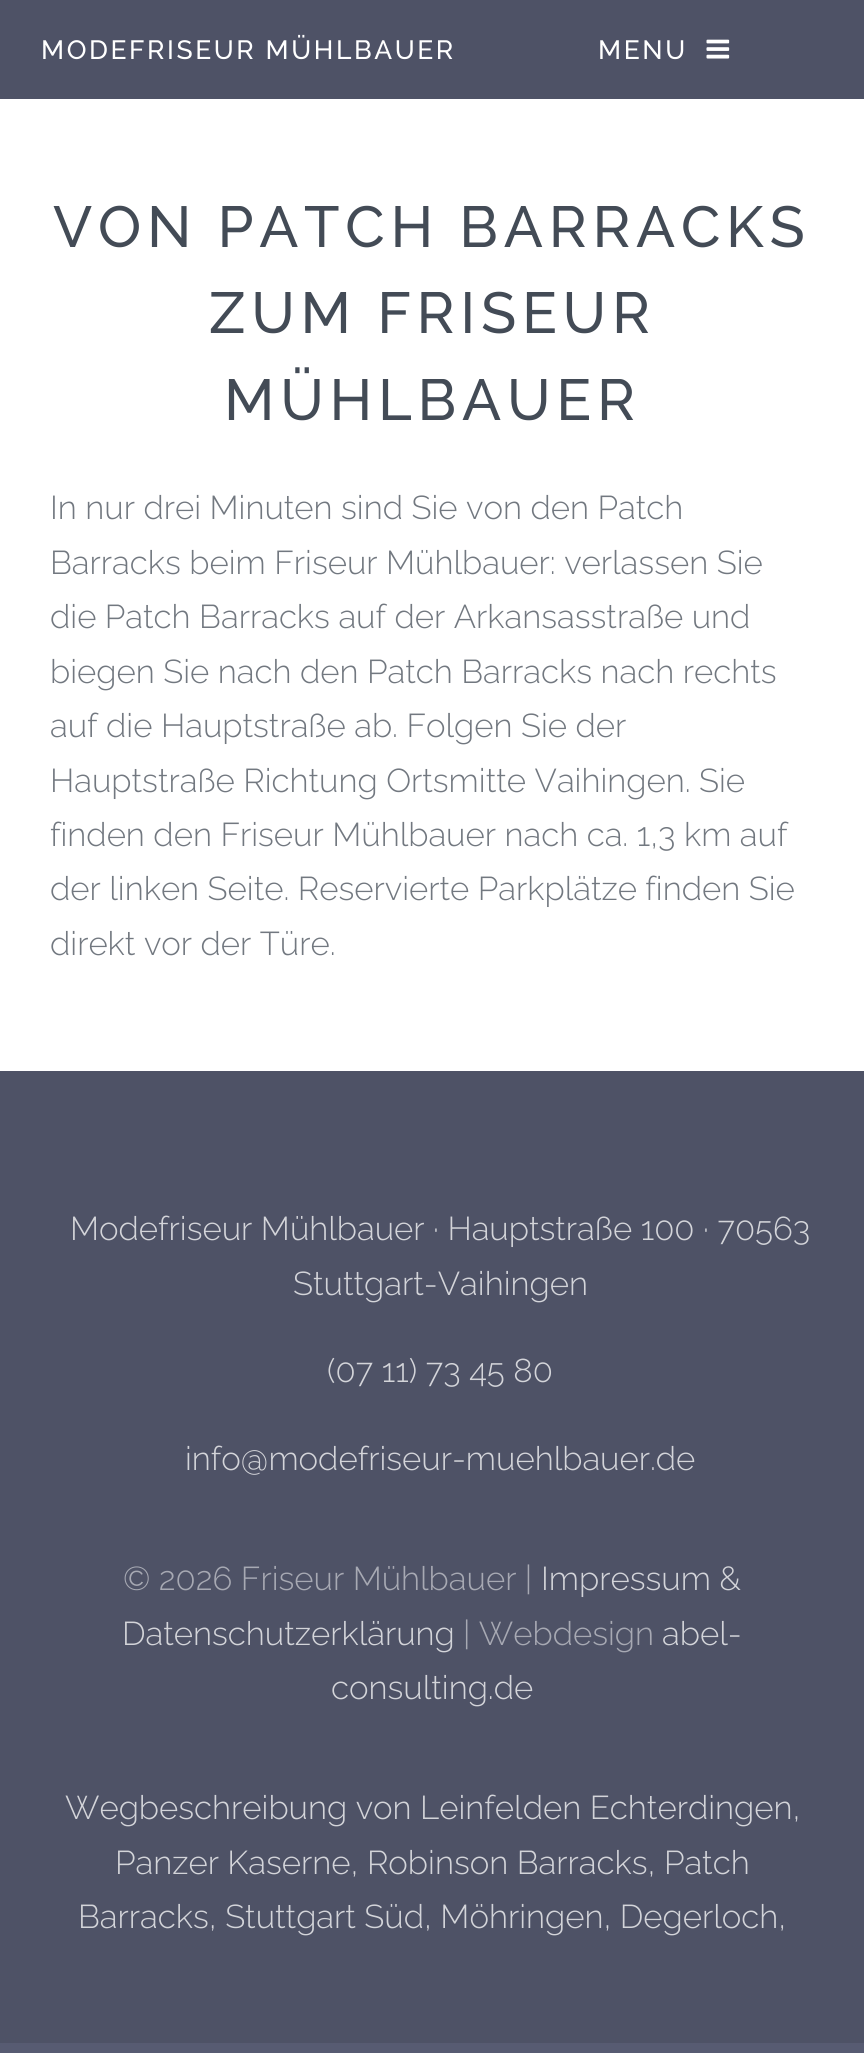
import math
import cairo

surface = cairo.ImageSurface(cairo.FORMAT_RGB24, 864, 2053)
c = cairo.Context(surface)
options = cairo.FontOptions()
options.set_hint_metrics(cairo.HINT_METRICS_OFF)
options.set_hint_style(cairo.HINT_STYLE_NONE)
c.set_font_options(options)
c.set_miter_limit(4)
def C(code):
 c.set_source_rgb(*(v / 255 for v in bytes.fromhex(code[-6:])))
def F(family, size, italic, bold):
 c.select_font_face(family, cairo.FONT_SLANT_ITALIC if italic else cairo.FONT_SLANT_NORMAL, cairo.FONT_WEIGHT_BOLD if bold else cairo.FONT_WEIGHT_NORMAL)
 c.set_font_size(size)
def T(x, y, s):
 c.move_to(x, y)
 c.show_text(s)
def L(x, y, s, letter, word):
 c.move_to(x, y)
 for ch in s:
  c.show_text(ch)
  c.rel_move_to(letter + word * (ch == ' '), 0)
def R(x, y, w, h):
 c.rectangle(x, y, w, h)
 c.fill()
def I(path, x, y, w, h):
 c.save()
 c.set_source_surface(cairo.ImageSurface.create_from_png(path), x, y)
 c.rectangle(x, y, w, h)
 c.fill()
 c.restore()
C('575b72')
c.paint()
C('4e5266')
R(0,0,864,99)
F('Raleway Medium',26.4,0,0)
C('ffffff')
L(41,59,'MODEFRISEUR MÜHLBAUER',2.6,0)
L(598,59,'MENU',2.6,0)
I('1.png',706,39,24,20)
R(0,99,864,972)
F('Raleway Medium',57.75,0,0)
C('434b56')
L(53,247,'VON PATCH BARRACKS',5.75,0)
L(209,333,'ZUM FRISEUR',5.75,0)
L(224,420,'MÜHLBAUER',5.75,0)
F('Raleway Light',33,0,0)
C('727880')
T(50,519,'In nur drei Minuten sind Sie von den Patch')
T(50,574,'Barracks beim Friseur Mühlbauer: verlassen Sie')
T(50,628,'die Patch Barracks auf der Arkansasstraße und')
T(50,683,'biegen Sie nach den Patch Barracks nach rechts')
T(50,737,'auf die Hauptstraße ab. Folgen Sie der')
T(50,792,'Hauptstraße Richtung Ortsmitte Vaihingen. Sie')
T(50,846,'finden den Friseur Mühlbauer nach ca. 1,3 km auf')
T(50,900,'der linken Seite. Reservierte Parkplätze finden Sie')
T(50,955,'direkt vor der Türe.')
C('4e5266')
R(0,1071,864,972)
C('d3d4d9')
T(70,1240,'Modefriseur Mühlbauer · Hauptstraße 100 · 70563')
T(293,1295,'Stuttgart-Vaihingen')
T(327,1382,'(07 11) 73 45 80')
T(185,1470,'info@modefriseur-muehlbauer.de')
C('a7a9b3')
T(123,1590,'© 2026 Friseur Mühlbauer |')
C('d3d4d9')
T(541,1590,'Impressum &')
T(122,1645,'Datenschutzerklärung')
C('a7a9b3')
T(463,1645,'| Webdesign')
C('d3d4d9')
T(662,1645,'abel-')
T(331,1699,'consulting.de')
T(65,1819,'Wegbeschreibung von Leinfelden Echterdingen,')
T(115,1874,'Panzer Kaserne, Robinson Barracks, Patch')
T(78,1928,'Barracks, Stuttgart Süd, Möhringen, Degerloch,')
surface.write_to_png('o.png')
